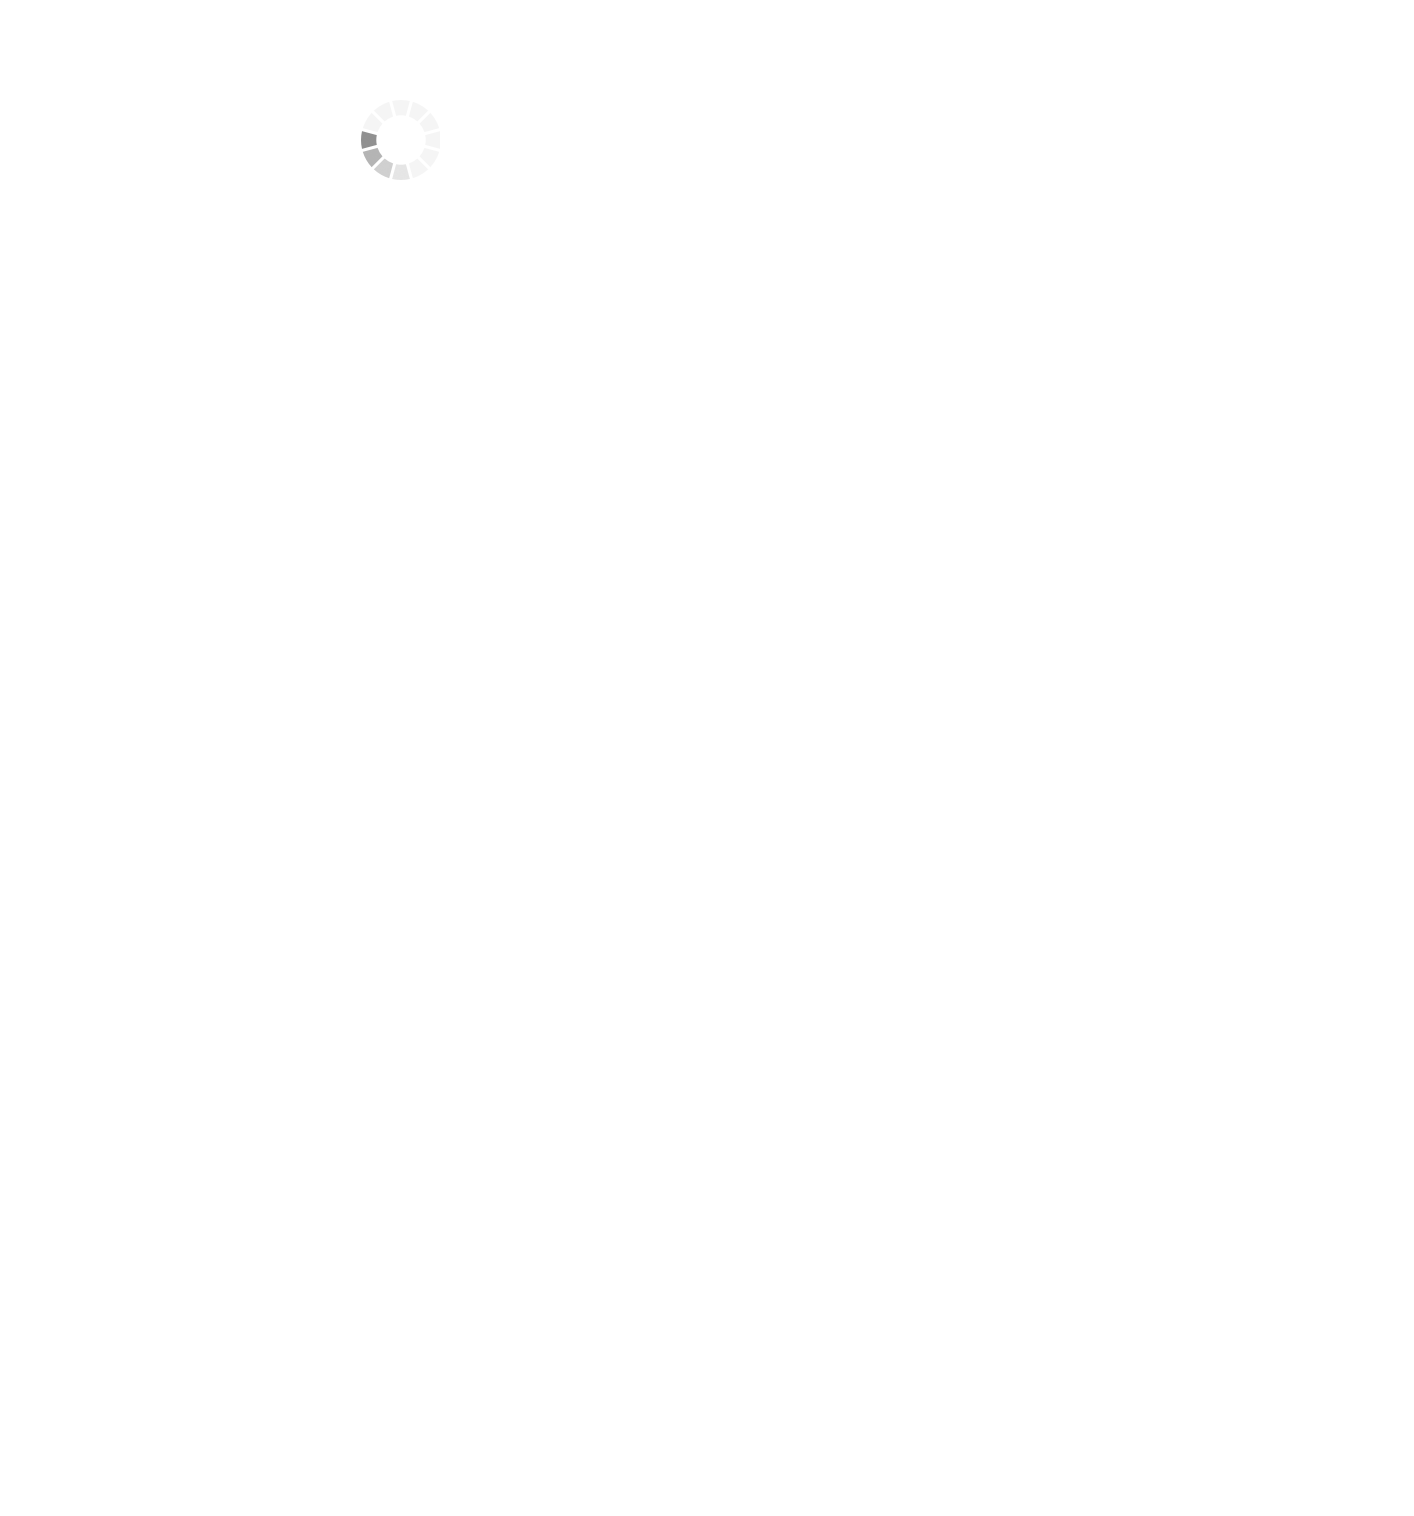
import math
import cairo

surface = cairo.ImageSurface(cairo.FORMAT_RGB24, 1414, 1516)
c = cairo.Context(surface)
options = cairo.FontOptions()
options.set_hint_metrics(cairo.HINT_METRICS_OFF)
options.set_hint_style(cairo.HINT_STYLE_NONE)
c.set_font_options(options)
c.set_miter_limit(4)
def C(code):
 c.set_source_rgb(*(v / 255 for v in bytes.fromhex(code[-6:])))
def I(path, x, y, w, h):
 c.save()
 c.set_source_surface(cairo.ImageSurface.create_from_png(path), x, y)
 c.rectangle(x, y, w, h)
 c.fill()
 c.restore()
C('ffffff')
c.paint()
I('1.png',361,100,79,80)
surface.write_to_png('o.png')
